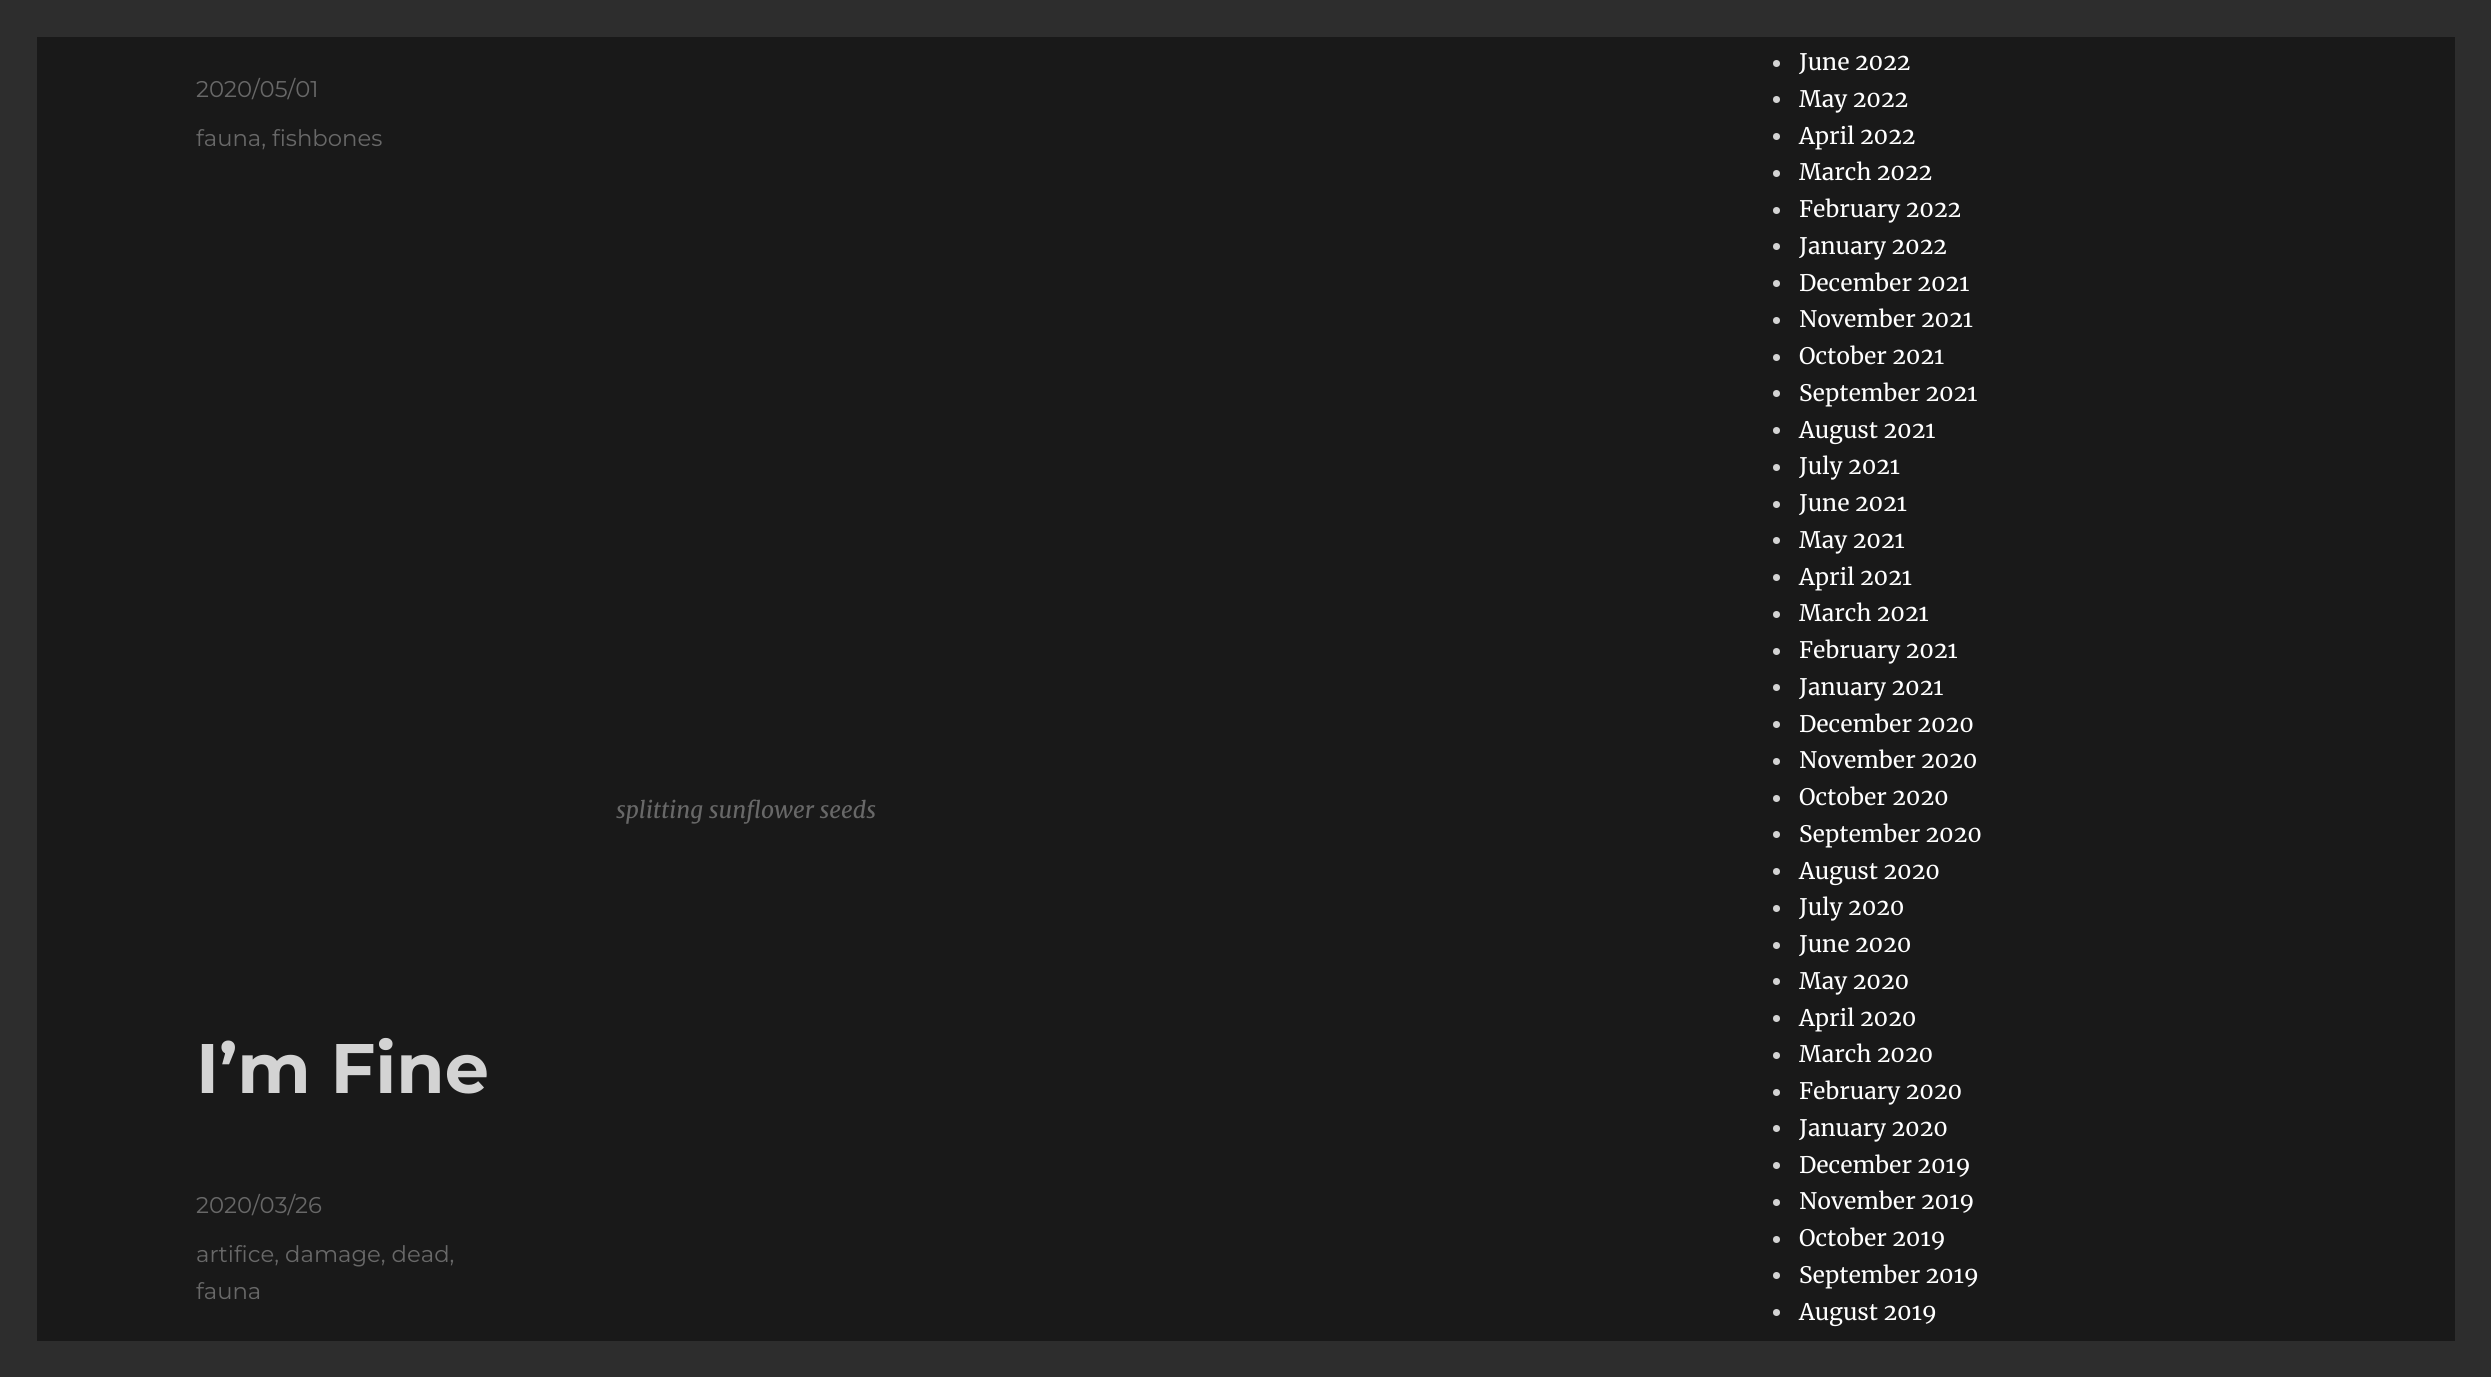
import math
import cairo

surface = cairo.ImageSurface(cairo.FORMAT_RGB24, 2491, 1377)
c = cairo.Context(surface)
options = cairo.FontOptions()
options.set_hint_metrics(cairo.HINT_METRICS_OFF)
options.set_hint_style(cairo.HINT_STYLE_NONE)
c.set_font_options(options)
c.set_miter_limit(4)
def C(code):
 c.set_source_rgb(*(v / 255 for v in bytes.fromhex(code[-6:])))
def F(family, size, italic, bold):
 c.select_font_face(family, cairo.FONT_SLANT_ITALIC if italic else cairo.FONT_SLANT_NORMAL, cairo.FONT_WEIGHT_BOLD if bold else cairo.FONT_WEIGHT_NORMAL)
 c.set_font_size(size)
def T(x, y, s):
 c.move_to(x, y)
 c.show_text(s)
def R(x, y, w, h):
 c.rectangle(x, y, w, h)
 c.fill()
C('2d2d2d')
c.paint()
C('191919')
R(37,37,2418,1304)
F('Montserrat Thin',22.75,0,0)
C('686868')
T(196,97,'2020/05/01')
T(196,146,'fauna, fishbones')
F('Merriweather',22.75,1,0)
T(616,818,'splitting sunflower seeds')
F('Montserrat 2 Thin',70,0,0)
C('d3d3d3')
T(196,1093,'I’m Fine')
F('Montserrat Thin',22.75,0,0)
C('686868')
T(196,1213,'2020/03/26')
T(196,1262,'artifice, damage, dead,')
T(196,1299,'fauna')
C('d3d3d3')
c.new_path()
c.arc(1776.5,63.5,3.5,0,2 * math.pi)
c.fill()
F('Merriweather',22.75,0,0)
C('ffffff')
T(1799,70,'June 2022')
C('d3d3d3')
c.new_path()
c.arc(1776.5,99.5,3.5,0,2 * math.pi)
c.fill()
C('ffffff')
T(1799,107,'May 2022')
C('d3d3d3')
c.new_path()
c.arc(1776.5,136.5,3.5,0,2 * math.pi)
c.fill()
C('ffffff')
T(1799,144,'April 2022')
C('d3d3d3')
c.new_path()
c.arc(1776.5,173.5,3.5,0,2 * math.pi)
c.fill()
C('ffffff')
T(1799,180,'March 2022')
C('d3d3d3')
c.new_path()
c.arc(1776.5,210.5,3.5,0,2 * math.pi)
c.fill()
C('ffffff')
T(1799,217,'February 2022')
C('d3d3d3')
c.new_path()
c.arc(1776.5,246.5,3.5,0,2 * math.pi)
c.fill()
C('ffffff')
T(1799,254,'January 2022')
C('d3d3d3')
c.new_path()
c.arc(1776.5,283.5,3.5,0,2 * math.pi)
c.fill()
C('ffffff')
T(1799,291,'December 2021')
C('d3d3d3')
c.new_path()
c.arc(1776.5,320.5,3.5,0,2 * math.pi)
c.fill()
C('ffffff')
T(1799,327,'November 2021')
C('d3d3d3')
c.new_path()
c.arc(1776.5,357.5,3.5,0,2 * math.pi)
c.fill()
C('ffffff')
T(1799,364,'October 2021')
C('d3d3d3')
c.new_path()
c.arc(1776.5,393.5,3.5,0,2 * math.pi)
c.fill()
C('ffffff')
T(1799,401,'September 2021')
C('d3d3d3')
c.new_path()
c.arc(1776.5,430.5,3.5,0,2 * math.pi)
c.fill()
C('ffffff')
T(1799,438,'August 2021')
C('d3d3d3')
c.new_path()
c.arc(1776.5,467.5,3.5,0,2 * math.pi)
c.fill()
C('ffffff')
T(1799,474,'July 2021')
C('d3d3d3')
c.new_path()
c.arc(1776.5,504.5,3.5,0,2 * math.pi)
c.fill()
C('ffffff')
T(1799,511,'June 2021')
C('d3d3d3')
c.new_path()
c.arc(1776.5,540.5,3.5,0,2 * math.pi)
c.fill()
C('ffffff')
T(1799,548,'May 2021')
C('d3d3d3')
c.new_path()
c.arc(1776.5,577.5,3.5,0,2 * math.pi)
c.fill()
C('ffffff')
T(1799,585,'April 2021')
C('d3d3d3')
c.new_path()
c.arc(1776.5,614.5,3.5,0,2 * math.pi)
c.fill()
C('ffffff')
T(1799,621,'March 2021')
C('d3d3d3')
c.new_path()
c.arc(1776.5,651.5,3.5,0,2 * math.pi)
c.fill()
C('ffffff')
T(1799,658,'February 2021')
C('d3d3d3')
c.new_path()
c.arc(1776.5,687.5,3.5,0,2 * math.pi)
c.fill()
C('ffffff')
T(1799,695,'January 2021')
C('d3d3d3')
c.new_path()
c.arc(1776.5,724.5,3.5,0,2 * math.pi)
c.fill()
C('ffffff')
T(1799,732,'December 2020')
C('d3d3d3')
c.new_path()
c.arc(1776.5,761.5,3.5,0,2 * math.pi)
c.fill()
C('ffffff')
T(1799,768,'November 2020')
C('d3d3d3')
c.new_path()
c.arc(1776.5,798.5,3.5,0,2 * math.pi)
c.fill()
C('ffffff')
T(1799,805,'October 2020')
C('d3d3d3')
c.new_path()
c.arc(1776.5,834.5,3.5,0,2 * math.pi)
c.fill()
C('ffffff')
T(1799,842,'September 2020')
C('d3d3d3')
c.new_path()
c.arc(1776.5,871.5,3.5,0,2 * math.pi)
c.fill()
C('ffffff')
T(1799,879,'August 2020')
C('d3d3d3')
c.new_path()
c.arc(1776.5,908.5,3.5,0,2 * math.pi)
c.fill()
C('ffffff')
T(1799,915,'July 2020')
C('d3d3d3')
c.new_path()
c.arc(1776.5,945.5,3.5,0,2 * math.pi)
c.fill()
C('ffffff')
T(1799,952,'June 2020')
C('d3d3d3')
c.new_path()
c.arc(1776.5,981.5,3.5,0,2 * math.pi)
c.fill()
C('ffffff')
T(1799,989,'May 2020')
C('d3d3d3')
c.new_path()
c.arc(1776.5,1018.5,3.5,0,2 * math.pi)
c.fill()
C('ffffff')
T(1799,1026,'April 2020')
C('d3d3d3')
c.new_path()
c.arc(1776.5,1055.5,3.5,0,2 * math.pi)
c.fill()
C('ffffff')
T(1799,1062,'March 2020')
C('d3d3d3')
c.new_path()
c.arc(1776.5,1092.5,3.5,0,2 * math.pi)
c.fill()
C('ffffff')
T(1799,1099,'February 2020')
C('d3d3d3')
c.new_path()
c.arc(1776.5,1128.5,3.5,0,2 * math.pi)
c.fill()
C('ffffff')
T(1799,1136,'January 2020')
C('d3d3d3')
c.new_path()
c.arc(1776.5,1165.5,3.5,0,2 * math.pi)
c.fill()
C('ffffff')
T(1799,1173,'December 2019')
C('d3d3d3')
c.new_path()
c.arc(1776.5,1202.5,3.5,0,2 * math.pi)
c.fill()
C('ffffff')
T(1799,1209,'November 2019')
C('d3d3d3')
c.new_path()
c.arc(1776.5,1239.5,3.5,0,2 * math.pi)
c.fill()
C('ffffff')
T(1799,1246,'October 2019')
C('d3d3d3')
c.new_path()
c.arc(1776.5,1275.5,3.5,0,2 * math.pi)
c.fill()
C('ffffff')
T(1799,1283,'September 2019')
C('d3d3d3')
c.new_path()
c.arc(1776.5,1312.5,3.5,0,2 * math.pi)
c.fill()
C('ffffff')
T(1799,1320,'August 2019')
surface.write_to_png('o.png')
